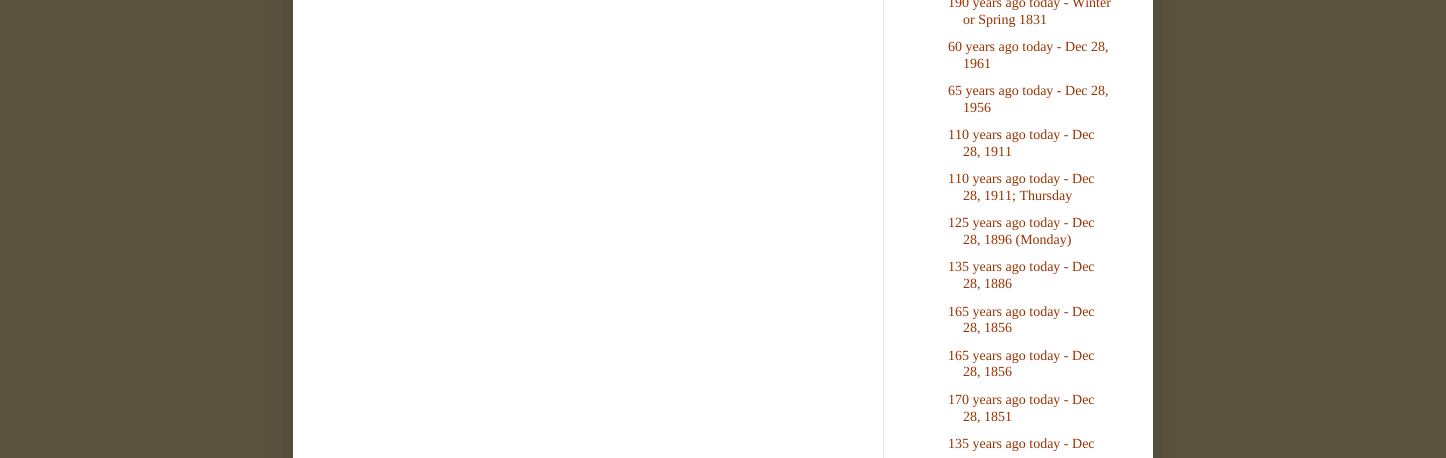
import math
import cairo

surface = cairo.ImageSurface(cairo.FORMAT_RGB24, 1446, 458)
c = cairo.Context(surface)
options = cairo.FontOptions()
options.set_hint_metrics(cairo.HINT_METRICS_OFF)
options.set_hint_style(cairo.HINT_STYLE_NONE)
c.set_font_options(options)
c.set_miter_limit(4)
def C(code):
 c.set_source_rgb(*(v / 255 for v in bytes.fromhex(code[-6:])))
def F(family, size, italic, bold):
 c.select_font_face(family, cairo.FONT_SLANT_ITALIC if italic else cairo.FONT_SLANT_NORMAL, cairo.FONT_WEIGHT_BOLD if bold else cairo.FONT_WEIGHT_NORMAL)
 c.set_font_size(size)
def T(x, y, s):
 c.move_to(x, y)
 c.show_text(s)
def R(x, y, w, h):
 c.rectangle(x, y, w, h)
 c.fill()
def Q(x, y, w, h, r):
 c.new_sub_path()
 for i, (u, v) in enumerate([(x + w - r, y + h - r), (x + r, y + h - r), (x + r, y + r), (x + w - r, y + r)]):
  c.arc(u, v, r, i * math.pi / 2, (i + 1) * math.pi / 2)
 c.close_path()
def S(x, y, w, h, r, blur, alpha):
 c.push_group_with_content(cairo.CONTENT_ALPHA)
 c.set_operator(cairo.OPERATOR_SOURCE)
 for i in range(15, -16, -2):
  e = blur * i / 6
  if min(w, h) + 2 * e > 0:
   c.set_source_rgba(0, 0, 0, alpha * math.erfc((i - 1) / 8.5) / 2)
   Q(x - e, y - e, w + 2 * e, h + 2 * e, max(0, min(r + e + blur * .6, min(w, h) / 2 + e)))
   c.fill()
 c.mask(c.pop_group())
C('5b533f')
c.paint()
C('000000')
S(293,-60,860,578,0,20,.15)
C('ffffff')
R(293,0,860,458)
C('eee5dd')
R(883,0,1,458)
F('Liberation Serif',14,0,0)
C('993200')
T(948,7,'190 years ago today - Winter')
T(963,24,'or Spring 1831')
T(948,51,'60 years ago today - Dec 28,')
T(963,68,'1961')
T(948,95,'65 years ago today - Dec 28,')
T(963,112,'1956')
T(948,139,'110 years ago today - Dec')
T(963,156,'28, 1911')
T(948,183,'110 years ago today - Dec')
T(963,200,'28, 1911; Thursday')
T(948,227,'125 years ago today - Dec')
T(963,244,'28, 1896 (Monday)')
T(948,271,'135 years ago today - Dec')
T(963,288,'28, 1886')
T(948,316,'165 years ago today - Dec')
T(963,332,'28, 1856')
T(948,360,'165 years ago today - Dec')
T(963,376,'28, 1856')
T(948,404,'170 years ago today - Dec')
T(963,421,'28, 1851')
T(948,448,'135 years ago today - Dec')
surface.write_to_png('o.png')
